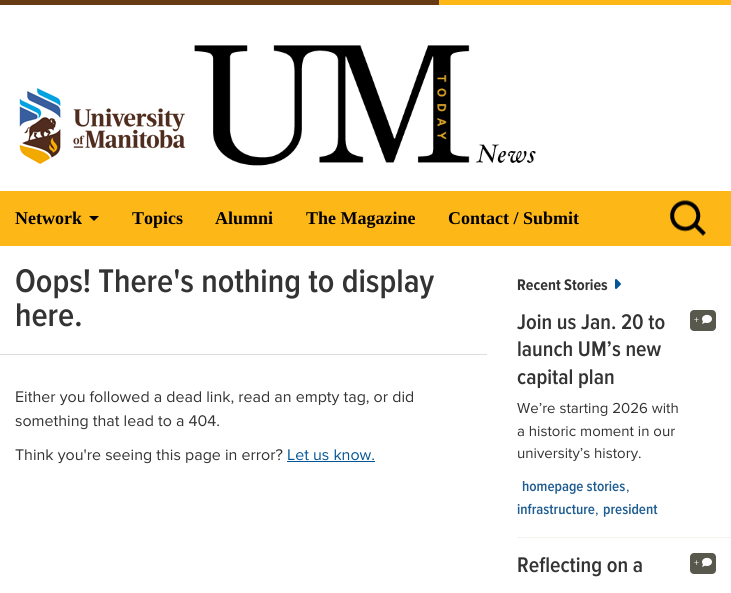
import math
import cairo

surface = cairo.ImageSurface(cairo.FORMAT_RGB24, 731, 593)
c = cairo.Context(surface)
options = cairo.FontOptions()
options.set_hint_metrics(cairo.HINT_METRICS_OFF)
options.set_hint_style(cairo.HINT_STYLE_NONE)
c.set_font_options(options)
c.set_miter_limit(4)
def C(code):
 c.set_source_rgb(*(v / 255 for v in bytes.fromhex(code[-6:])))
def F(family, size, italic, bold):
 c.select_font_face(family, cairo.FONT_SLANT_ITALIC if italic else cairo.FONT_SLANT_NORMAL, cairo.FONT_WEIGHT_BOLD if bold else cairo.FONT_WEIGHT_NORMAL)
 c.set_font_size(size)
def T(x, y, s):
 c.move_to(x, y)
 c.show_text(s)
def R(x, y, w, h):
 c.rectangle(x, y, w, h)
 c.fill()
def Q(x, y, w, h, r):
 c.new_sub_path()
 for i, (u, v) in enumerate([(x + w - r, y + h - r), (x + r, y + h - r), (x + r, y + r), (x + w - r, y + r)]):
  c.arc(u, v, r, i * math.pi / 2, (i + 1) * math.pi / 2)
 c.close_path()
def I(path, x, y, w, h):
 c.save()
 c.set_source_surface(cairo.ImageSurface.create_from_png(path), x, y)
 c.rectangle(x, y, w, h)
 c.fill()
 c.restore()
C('ffffff')
c.paint()
C('653a15')
R(0,0,439,5)
C('fdb817')
R(439,0,292,5)
I('1.png',19,88,166,76)
I('2.png',194,45,342,121)
R(0,191,731,55)
F('Liberation Serif',18,0,1)
C('000000')
T(15,224,'Network')
c.new_path()
c.move_to(89,216)
c.line_to(99,216)
c.line_to(94,221)
c.close_path()
c.fill()
T(132,224,'Topics')
T(215,224,'Alumni')
T(306,224,'The Magazine')
T(448,224,'Contact / Submit')
I('3.png',670,200,36,36)
F('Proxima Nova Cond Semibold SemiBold',34,0,0)
C('333333')
T(15,292,'Oops! There\'s nothing to display')
T(15,326,'here.')
C('dddddd')
R(0,354,487,1)
F('Proxima Nova',16,0,0)
C('333333')
T(15,402,'Either you followed a dead link, read an empty tag, or did')
T(15,426,'something that lead to a 404.')
T(15,460,'Think you\'re seeing this page in error?')
C('035595')
T(287,460,'Let us know.')
R(287,461,88,1)
F('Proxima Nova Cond',16,0,1)
C('333333')
T(517,290,'Recent Stories')
I('4.png',615,279,6,10)
F('Proxima Nova Cond Semibold SemiBold',22,0,0)
T(517,329,'Join us Jan. 20 to')
T(517,356,'launch UM’s new')
T(517,384,'capital plan')
C('59584d')
Q(690,310,26,21,4)
c.fill()
F('Proxima Nova',10,0,0)
C('ffffff')
T(694,323,'+')
I('5.png',702,314,10,10)
F('Proxima Nova',15,0,0)
C('333333')
T(517,413,'We’re starting 2026 with')
T(517,436,'a historic moment in our')
T(517,458,'university’s history.')
F('Proxima Nova Cond Semibold SemiBold',15,0,0)
C('1e5c91')
T(522,491,'homepage stories')
F('Proxima Nova',15,0,0)
T(626,491,',')
F('Proxima Nova Cond Semibold SemiBold',15,0,0)
T(517,514,'infrastructure')
F('Proxima Nova',15,0,0)
T(595,514,',')
F('Proxima Nova Cond Semibold SemiBold',15,0,0)
T(603,514,'president')
C('f5f1ed')
R(517,537,214,1)
F('Proxima Nova Cond Semibold SemiBold',22,0,0)
C('333333')
T(517,572,'Reflecting on a')
C('59584d')
Q(690,553,26,21,4)
c.fill()
F('Proxima Nova',10,0,0)
C('ffffff')
T(694,566,'+')
I('5.png',702,557,10,10)
surface.write_to_png('o.png')
